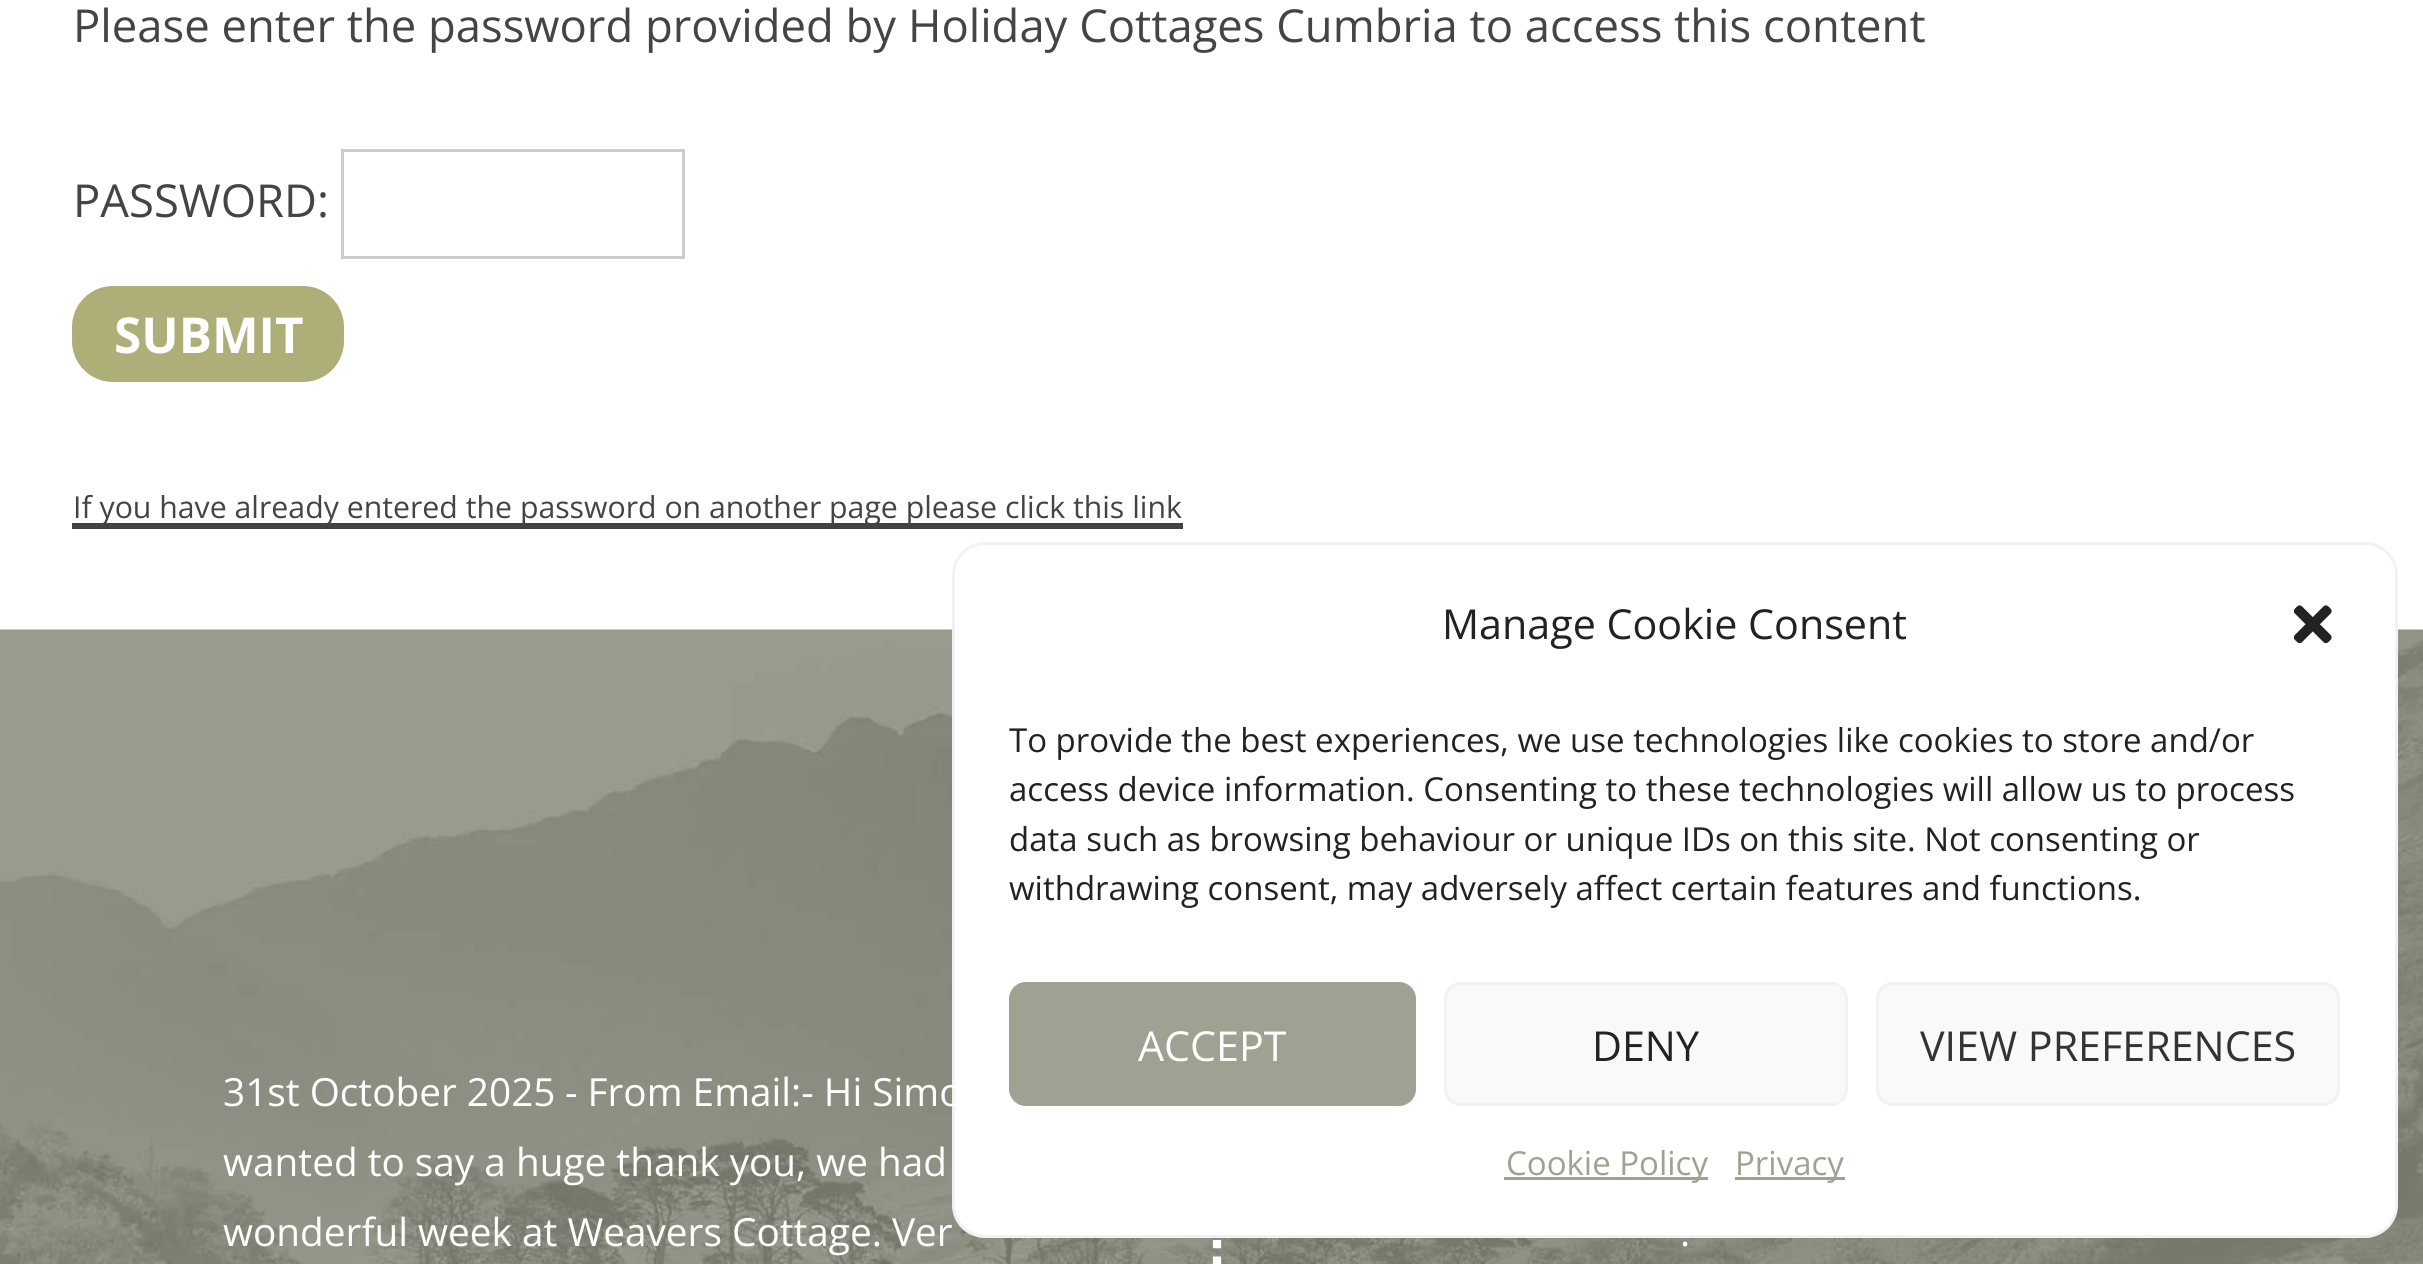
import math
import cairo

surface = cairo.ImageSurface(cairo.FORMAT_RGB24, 2423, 1264)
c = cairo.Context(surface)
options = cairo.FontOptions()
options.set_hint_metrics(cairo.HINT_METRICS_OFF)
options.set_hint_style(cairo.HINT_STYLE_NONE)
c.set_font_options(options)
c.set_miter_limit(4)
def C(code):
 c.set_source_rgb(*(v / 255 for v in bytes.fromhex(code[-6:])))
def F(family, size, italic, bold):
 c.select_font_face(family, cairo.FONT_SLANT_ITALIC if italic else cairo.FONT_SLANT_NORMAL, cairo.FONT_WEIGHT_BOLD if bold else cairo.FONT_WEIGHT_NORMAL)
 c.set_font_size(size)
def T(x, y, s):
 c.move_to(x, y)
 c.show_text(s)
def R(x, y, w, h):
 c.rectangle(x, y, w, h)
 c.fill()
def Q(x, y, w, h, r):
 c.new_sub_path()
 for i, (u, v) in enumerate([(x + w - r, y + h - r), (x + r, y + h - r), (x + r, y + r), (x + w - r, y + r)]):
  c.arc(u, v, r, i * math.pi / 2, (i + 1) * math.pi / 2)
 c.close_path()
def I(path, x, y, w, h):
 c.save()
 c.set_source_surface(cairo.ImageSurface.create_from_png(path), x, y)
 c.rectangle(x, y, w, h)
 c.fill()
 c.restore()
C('ffffff')
c.paint()
F('Open Sans',45.4,0,0)
C('444444')
T(73,42,'Please enter the password provided by Holiday Cottages Cumbria to access this content')
T(73,217,'PASSWORD:')
c.rectangle(342.5,150.5,341,107)
C('cccccc')
c.set_line_width(3)
c.stroke()
C('aeae78')
Q(72,286,272,96,41)
c.fill()
F('Open Sans',49.5,0,1)
C('ffffff')
T(114,353,'SUBMIT')
C('3f4247')
R(72,523,1111,6)
F('Open Sans',30.25,0,0)
C('444444')
T(73,518,'If you have already entered the password on another page please click this link')
I('2.png',0,629,2423,635)
c.new_path()
c.move_to(1217,1042)
c.line_to(1217,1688.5)
C('ffffff')
c.set_line_width(8.2)
c.set_dash([8.25,8.25])
c.stroke()
Q(953.5,543.5,1443,693,31.5)
c.fill_preserve()
C('f2f2f2')
c.set_line_width(3)
c.set_dash([])
c.stroke()
F('Open Sans',41.25,0,0)
C('222222')
T(1442,639,'Manage Cookie Consent')
I('1.png',2293,605,39,39)
F('Open Sans',33,0,0)
T(1009,752,'To provide the best experiences, we use technologies like cookies to store and/or')
T(1009,801,'access device information. Consenting to these technologies will allow us to process')
T(1009,851,'data such as browsing behaviour or unique IDs on this site. Not consenting or')
T(1009,900,'withdrawing consent, may adversely affect certain features and functions.')
C('a0a193')
Q(1010.5,983.5,404,121,15.5)
c.fill_preserve()
c.stroke()
F('Open Sans',41.25,0,0)
C('ffffff')
T(1138,1061,'ACCEPT')
C('f9f9f9')
Q(1445.5,983.5,401,121,15.5)
c.fill_preserve()
C('f2f2f2')
c.stroke()
C('222222')
T(1592,1061,'DENY')
C('f9f9f9')
Q(1877.5,983.5,461,121,15.5)
c.fill_preserve()
C('f2f2f2')
c.stroke()
C('333333')
T(1920,1061,'VIEW PREFERENCES')
C('a0a193')
R(1504,1177,204,3)
F('Open Sans',33,0,0)
T(1506,1175,'Cookie Policy')
R(1735,1177,110,3)
T(1735,1175,'Privacy')
F('Open Sans',38.75,0,0)
C('ffffff')
T(223,1106,'31st October 2025')
T(565,1106,'- From Email:- Hi Simo')
T(223,1176,'wanted to say a huge thank you, we had')
T(223,1246,'wonderful week at Weavers Cottage. Ver')
T(1680,1246,'.')
surface.write_to_png('o.png')
